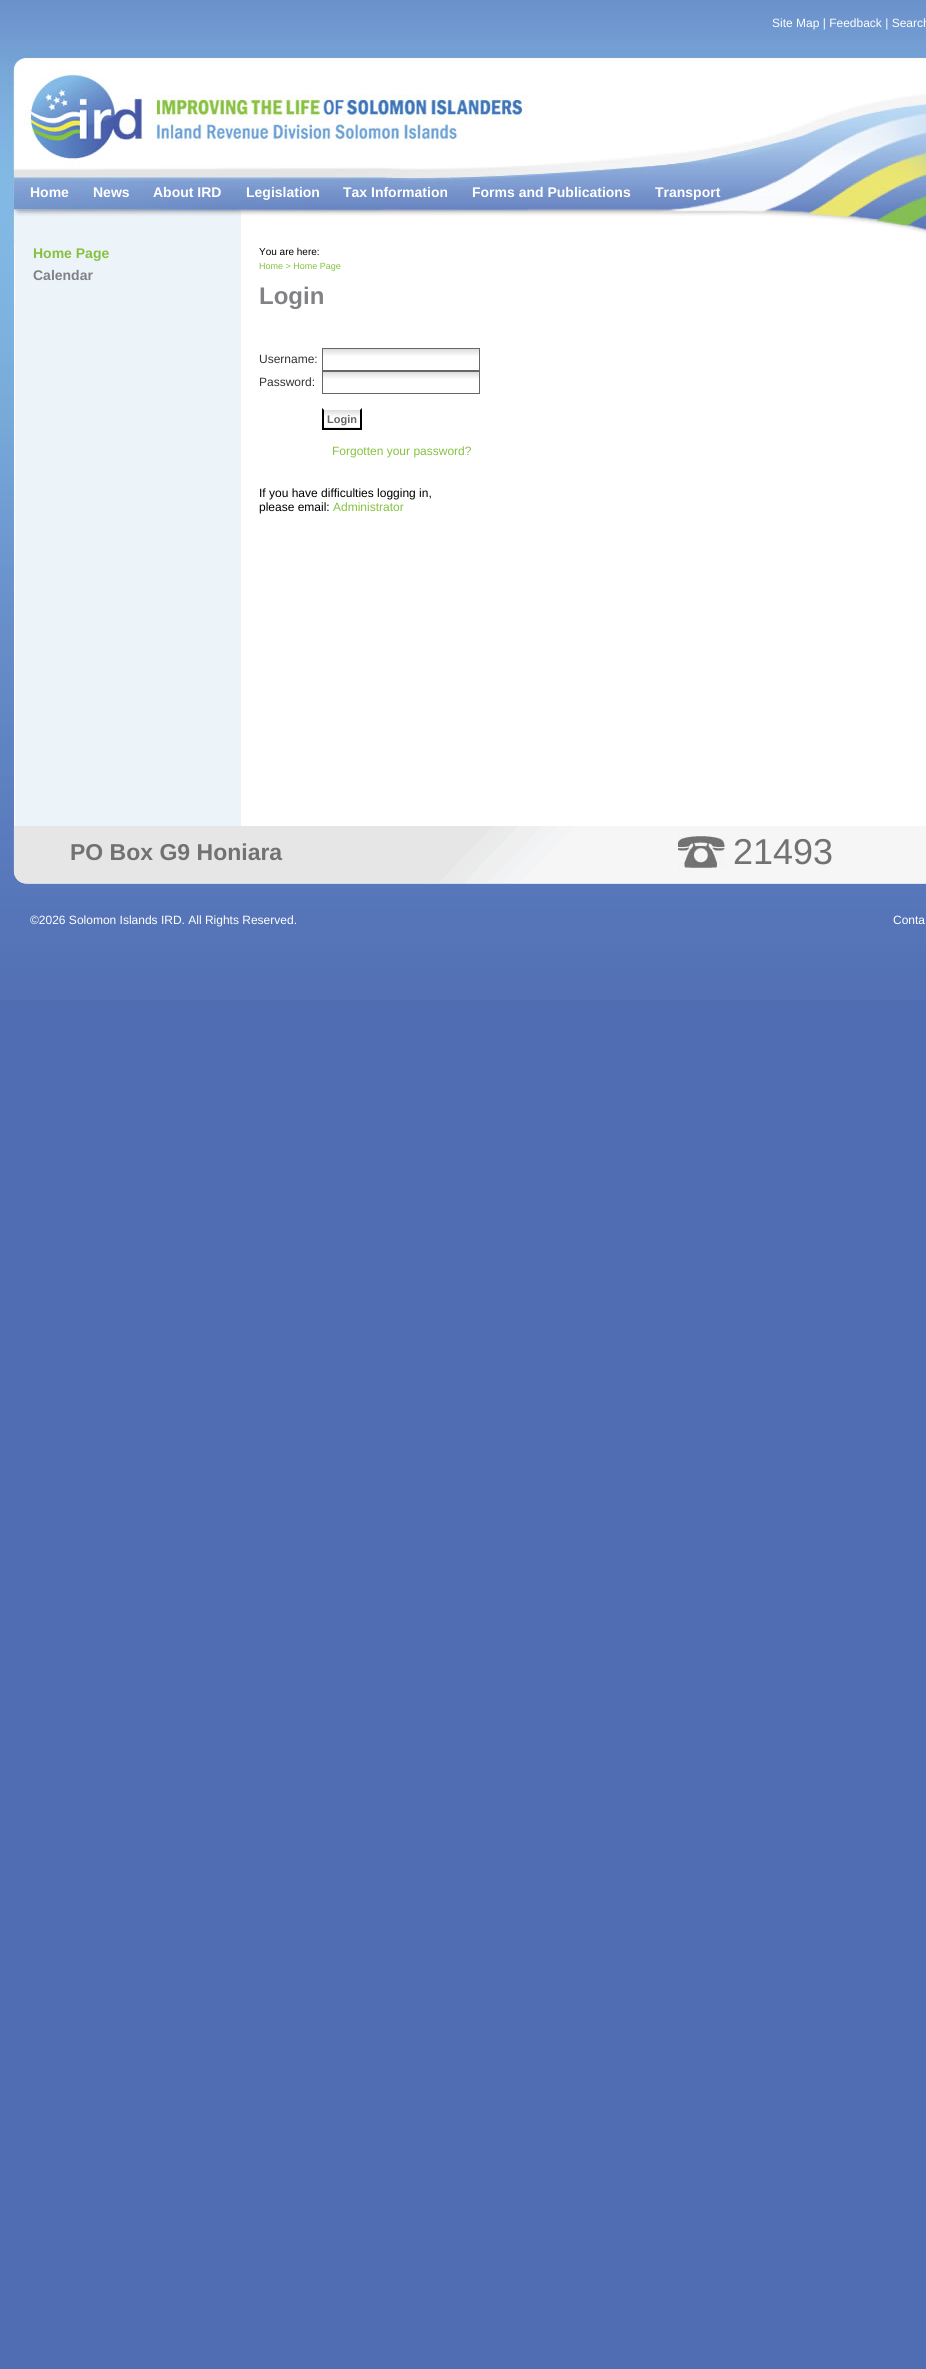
import math
import cairo

surface = cairo.ImageSurface(cairo.FORMAT_RGB24, 926, 2369)
c = cairo.Context(surface)
options = cairo.FontOptions()
options.set_hint_metrics(cairo.HINT_METRICS_OFF)
options.set_hint_style(cairo.HINT_STYLE_NONE)
c.set_font_options(options)
c.set_miter_limit(4)
def C(code):
 c.set_source_rgb(*(v / 255 for v in bytes.fromhex(code[-6:])))
def F(family, size, italic, bold):
 c.select_font_face(family, cairo.FONT_SLANT_ITALIC if italic else cairo.FONT_SLANT_NORMAL, cairo.FONT_WEIGHT_BOLD if bold else cairo.FONT_WEIGHT_NORMAL)
 c.set_font_size(size)
def T(x, y, s):
 c.move_to(x, y)
 c.show_text(s)
def R(x, y, w, h):
 c.rectangle(x, y, w, h)
 c.fill()
def I(path, x, y, w, h):
 c.save()
 c.set_source_surface(cairo.ImageSurface.create_from_png(path), x, y)
 c.rectangle(x, y, w, h)
 c.fill()
 c.restore()
C('506db4')
c.paint()
I('1.png',0,0,926,1000)
F('Liberation Sans',12,0,0)
C('ffffff')
T(772,27,'Site Map | Feedback | Search')
I('2.png',8,54,918,123)
I('3.png',8,177,918,31)
F('Liberation Sans',14,0,1)
T(30,197,'Home')
T(93,197,'News')
T(153,197,'About IRD')
T(246,197,'Legislation')
T(343,197,'Tax Information')
T(472,197,'Forms and Publications')
T(655,197,'Transport')
I('4.png',8,208,918,38)
I('5.png',14,246,912,580)
C('86c140')
T(33,258,'Home Page')
C('808285')
T(33,280,'Calendar')
F('Liberation Sans',10,0,0)
C('000000')
T(259,255,'You are here:')
F('Liberation Sans',9,0,0)
C('86c140')
T(259,269,'Home > Home Page')
F('Liberation Sans',24,0,1)
C('808285')
T(259,304,'Login')
F('Liberation Sans',12,0,0)
C('333333')
T(259,363,'Username:')
I('6.png',323,349,156,7)
c.rectangle(322.5,348.5,157,22)
C('666666')
c.set_line_width(1)
c.stroke()
C('333333')
T(259,386,'Password:')
I('6.png',323,372,156,7)
c.rectangle(322.5,371.5,157,22)
C('666666')
c.stroke()
C('efefef')
R(322,408,40,20)
I('7.png',324,410,36,17)
C('ffffff')
c.new_path()
c.move_to(322,408)
c.line_to(362,408)
c.line_to(360,410)
c.line_to(324,410)
c.close_path()
c.fill()
C('000000')
c.new_path()
c.move_to(362,408)
c.line_to(362,430)
c.line_to(360,428)
c.line_to(360,410)
c.close_path()
c.fill()
R(322,428,40,2)
c.new_path()
c.move_to(322,430)
c.line_to(322,408)
c.line_to(324,410)
c.line_to(324,428)
c.close_path()
c.fill()
F('Liberation Sans',11,0,1)
C('666666')
T(327,423,'Login')
F('Liberation Sans',12,0,0)
C('86c140')
T(332,455,'Forgotten your password?')
C('000000')
T(259,497,'If you have difficulties logging in,')
T(259,511,'please email:')
C('86c140')
T(333,511,'Administrator')
I('8.png',13,826,913,58)
F('Liberation Sans',23,0,1)
C('727272')
T(70,860,'PO Box G9 Honiara')
I('9.png',678,836,48,32)
F('Liberation Sans',36,0,0)
T(733,864,'21493')
F('Liberation Sans',12,0,0)
C('ffffff')
T(30,924,'©2026 Solomon Islands IRD. All Rights Reserved.')
T(893,924,'Conta')
surface.write_to_png('o.png')
